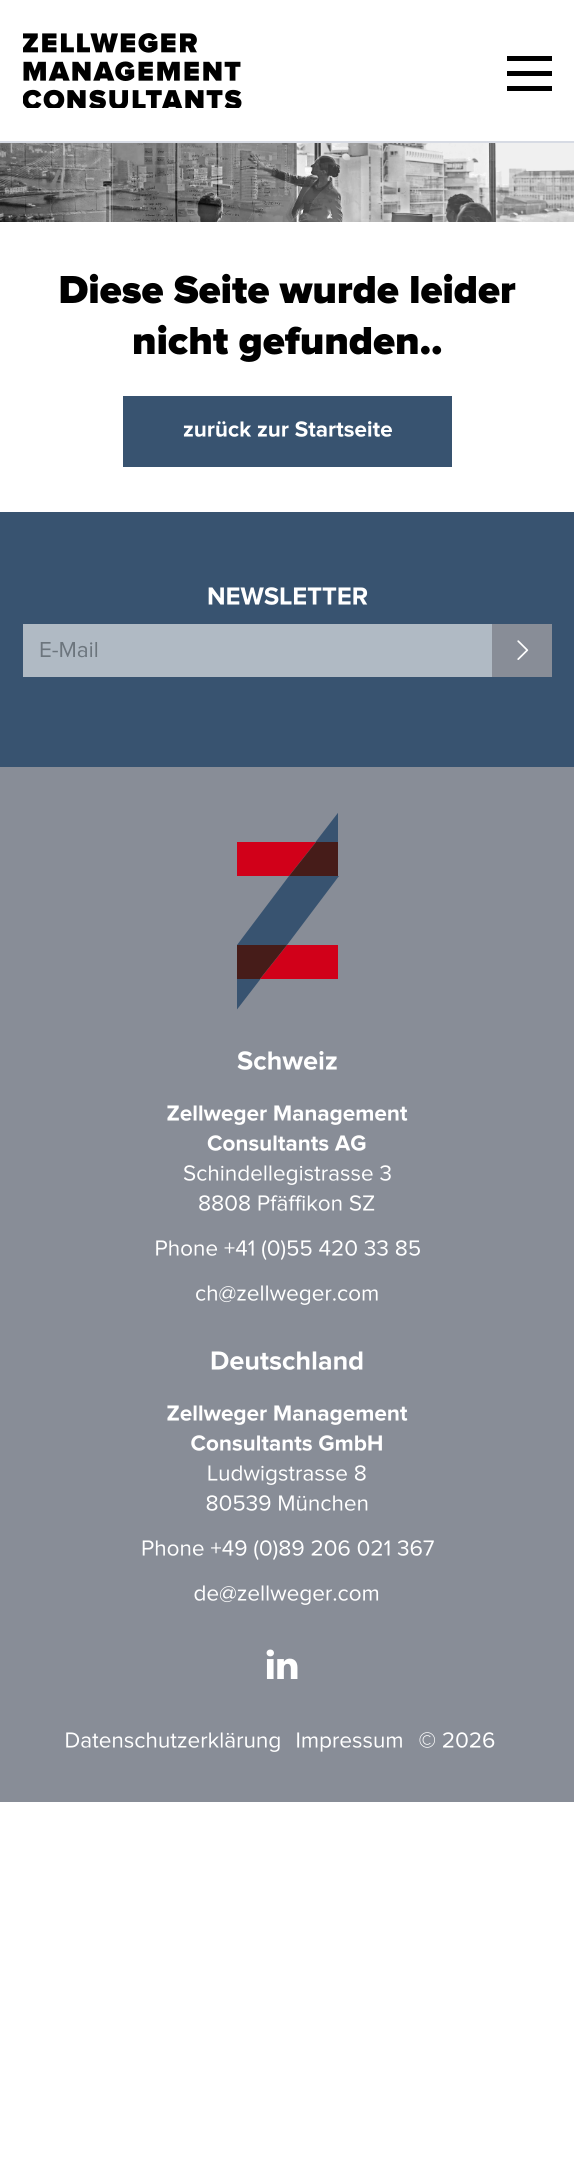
import math
import cairo

surface = cairo.ImageSurface(cairo.FORMAT_RGB24, 574, 2161)
c = cairo.Context(surface)
options = cairo.FontOptions()
options.set_hint_metrics(cairo.HINT_METRICS_OFF)
options.set_hint_style(cairo.HINT_STYLE_NONE)
c.set_font_options(options)
c.set_miter_limit(4)
def C(code):
 c.set_source_rgb(*(v / 255 for v in bytes.fromhex(code[-6:])))
def R(x, y, w, h):
 c.rectangle(x, y, w, h)
 c.fill()
def I(path, x, y, w, h):
 c.save()
 c.set_source_surface(cairo.ImageSurface.create_from_png(path), x, y)
 c.rectangle(x, y, w, h)
 c.fill()
 c.restore()
C('ffffff')
c.paint()
C('d7dbe4')
R(0,141,574,2)
I('1.png',23,33,219,75)
C('000000')
R(507,56,45,5)
R(507,71,45,5)
R(507,86,45,5)
I('2.png',0,143,574,79)
I('3.png',60,273,456,31)
I('4.png',134,324,308,38)
C('385370')
R(123,396,329,71)
I('5.png',183,421,209,16)
R(0,512,574,255)
I('6.png',208,587,160,18)
C('b0bac4')
R(23,624,469,53)
I('7.png',40,642,58,16)
C('888d97')
R(492,624,60,53)
I('8.png',517,640,12,20)
R(0,767,574,1035)
c.save()
c.rectangle(237,812,101,198)
c.clip()
C('385370')
c.new_path()
c.move_to(315.5,842)
c.line_to(339,842)
c.line_to(339,811.5)
c.close_path()
c.fill()
c.restore()
C('d10019')
c.new_path()
c.move_to(237,842)
c.line_to(237,876)
c.line_to(289,876)
c.line_to(316,842)
c.close_path()
c.fill()
c.save()
c.rectangle(237,812,101,198)
c.clip()
C('461c19')
c.new_path()
c.move_to(289,876)
c.line_to(339,876)
c.line_to(339,842)
c.line_to(316,842)
c.close_path()
c.fill()
c.restore()
C('385370')
c.new_path()
c.move_to(237,945)
c.line_to(287,945)
c.line_to(339,876)
c.line_to(289,876)
c.close_path()
c.fill()
c.save()
c.rectangle(237,812,101,198)
c.clip()
C('d10019')
c.new_path()
c.move_to(339,979)
c.line_to(339,945)
c.line_to(287,945)
c.line_to(260,979)
c.close_path()
c.fill()
c.restore()
C('461c19')
c.new_path()
c.move_to(237,979)
c.line_to(260,979)
c.line_to(287,945)
c.line_to(237,945)
c.close_path()
c.fill()
C('385370')
c.new_path()
c.move_to(237,1009.5)
c.line_to(260.5,979)
c.line_to(237,979)
c.close_path()
c.fill()
I('9.png',237,1051,100,19)
I('10.png',167,1105,241,20)
I('11.png',207,1135,159,16)
I('12.png',184,1165,207,20)
I('13.png',199,1195,176,16)
I('14.png',156,1240,264,20)
I('15.png',196,1285,182,20)
I('16.png',211,1351,152,19)
I('10.png',167,1405,241,20)
I('17.png',191,1435,191,16)
I('18.png',208,1465,158,20)
I('19.png',206,1495,162,16)
I('20.png',142,1540,292,20)
I('21.png',194,1585,185,20)
I('22.png',266,1649,32,30)
I('23.png',66,1732,214,20)
I('24.png',297,1732,105,20)
I('25.png',419,1732,76,16)
surface.write_to_png('o.png')
